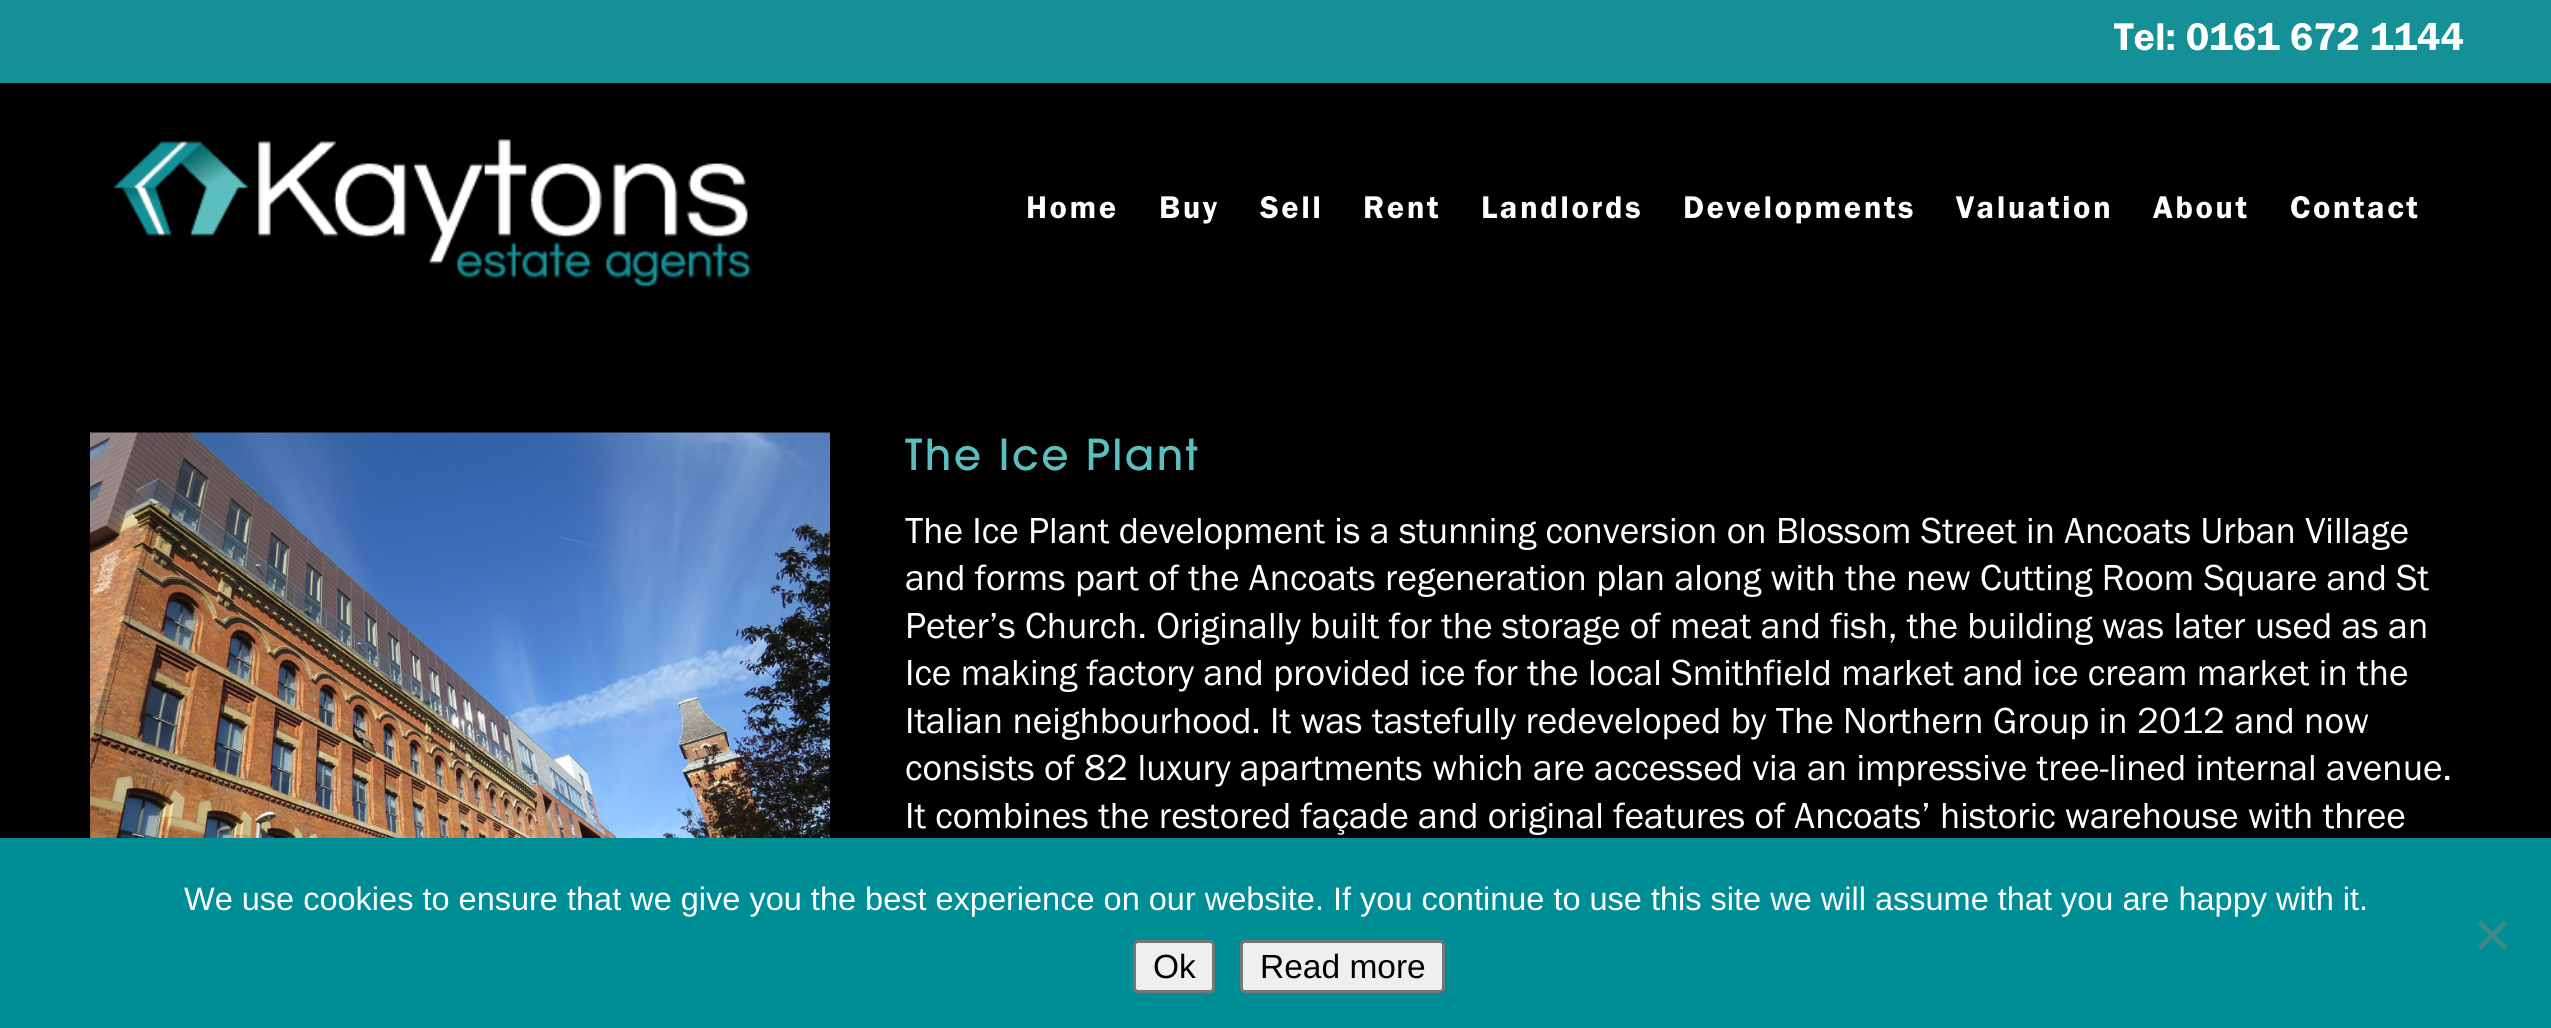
import math
import cairo

surface = cairo.ImageSurface(cairo.FORMAT_RGB24, 2551, 1028)
c = cairo.Context(surface)
options = cairo.FontOptions()
options.set_hint_metrics(cairo.HINT_METRICS_OFF)
options.set_hint_style(cairo.HINT_STYLE_NONE)
c.set_font_options(options)
c.set_miter_limit(4)
def C(code):
 c.set_source_rgb(*(v / 255 for v in bytes.fromhex(code[-6:])))
def F(family, size, italic, bold):
 c.select_font_face(family, cairo.FONT_SLANT_ITALIC if italic else cairo.FONT_SLANT_NORMAL, cairo.FONT_WEIGHT_BOLD if bold else cairo.FONT_WEIGHT_NORMAL)
 c.set_font_size(size)
def T(x, y, s):
 c.move_to(x, y)
 c.show_text(s)
def L(x, y, s, letter, word):
 c.move_to(x, y)
 for ch in s:
  c.show_text(ch)
  c.rel_move_to(letter + word * (ch == ' '), 0)
def R(x, y, w, h):
 c.rectangle(x, y, w, h)
 c.fill()
def Q(x, y, w, h, r):
 c.new_sub_path()
 for i, (u, v) in enumerate([(x + w - r, y + h - r), (x + r, y + h - r), (x + r, y + r), (x + w - r, y + r)]):
  c.arc(u, v, r, i * math.pi / 2, (i + 1) * math.pi / 2)
 c.close_path()
def I(path, x, y, w, h):
 c.save()
 c.set_source_surface(cairo.ImageSurface.create_from_png(path), x, y)
 c.rectangle(x, y, w, h)
 c.fill()
 c.restore()
C('000000')
c.paint()
C('159097')
R(0,0,2551,83)
F('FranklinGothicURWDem',40,0,0)
C('ffffff')
T(2114,50,'Tel: 0161 672 1144')
I('1.png',113,139,638,149)
F('FranklinGothicURWDem',32.5,0,0)
L(1026,218,'Home',2.5,0)
L(1159,218,'Buy',2.5,0)
L(1260,218,'Sell',2.5,0)
L(1363,218,'Rent',2.5,0)
L(1481,218,'Landlords',2.5,0)
L(1683,218,'Developments',2.5,0)
L(1956,218,'Valuation',2.5,0)
L(2153,218,'About',2.5,0)
L(2290,218,'Contact',2.5,0)
I('2.png',90,432,740,406)
F('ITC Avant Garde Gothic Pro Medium',42.5,0,0)
C('5bbfbd')
L(905,470,'The Ice Plant',2.5,0)
F('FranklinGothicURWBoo',37.5,0,0)
C('ffffff')
T(905,543,'The Ice Plant development is a stunning conversion on Blossom Street in Ancoats Urban Village')
T(905,590,'and forms part of the Ancoats regeneration plan along with the new Cutting Room Square and St')
T(905,638,'Peter’s Church. Originally built for the storage of meat and fish, the building was later used as an')
T(905,685,'Ice making factory and provided ice for the local Smithfield market and ice cream market in the')
T(905,733,'Italian neighbourhood. It was tastefully redeveloped by The Northern Group in 2012 and now')
T(905,780,'consists of 82 luxury apartments which are accessed via an impressive tree-lined internal avenue.')
T(905,828,'It combines the restored façade and original features of Ancoats’ historic warehouse with three')
C('008e96')
R(0,838,2551,190)
F('Liberation Sans',32.5,0,0)
C('ffffff')
T(184,910,'We use cookies to ensure that we give you the best experience on our website. If you continue to use this site we will assume that you are happy with it.')
C('40878b')
c.new_path()
c.move_to(2504,920)
c.line_to(2507.5,923.5)
c.line_to(2481,950)
c.line_to(2477.5,946.5)
c.close_path()
c.fill()
c.new_path()
c.move_to(2477.5,923.5)
c.line_to(2481,920)
c.line_to(2507.5,946.5)
c.line_to(2504,950)
c.close_path()
c.fill()
C('efefef')
Q(1134.5,941.5,79,50,3.5)
c.fill_preserve()
C('767676')
c.set_line_width(3)
c.stroke()
F('Liberation Sans',33.5,0,0)
C('000000')
T(1153,978,'Ok')
C('efefef')
Q(1241.5,941.5,202,50,3.5)
c.fill_preserve()
C('767676')
c.stroke()
C('000000')
T(1260,978,'Read more')
surface.write_to_png('o.png')
